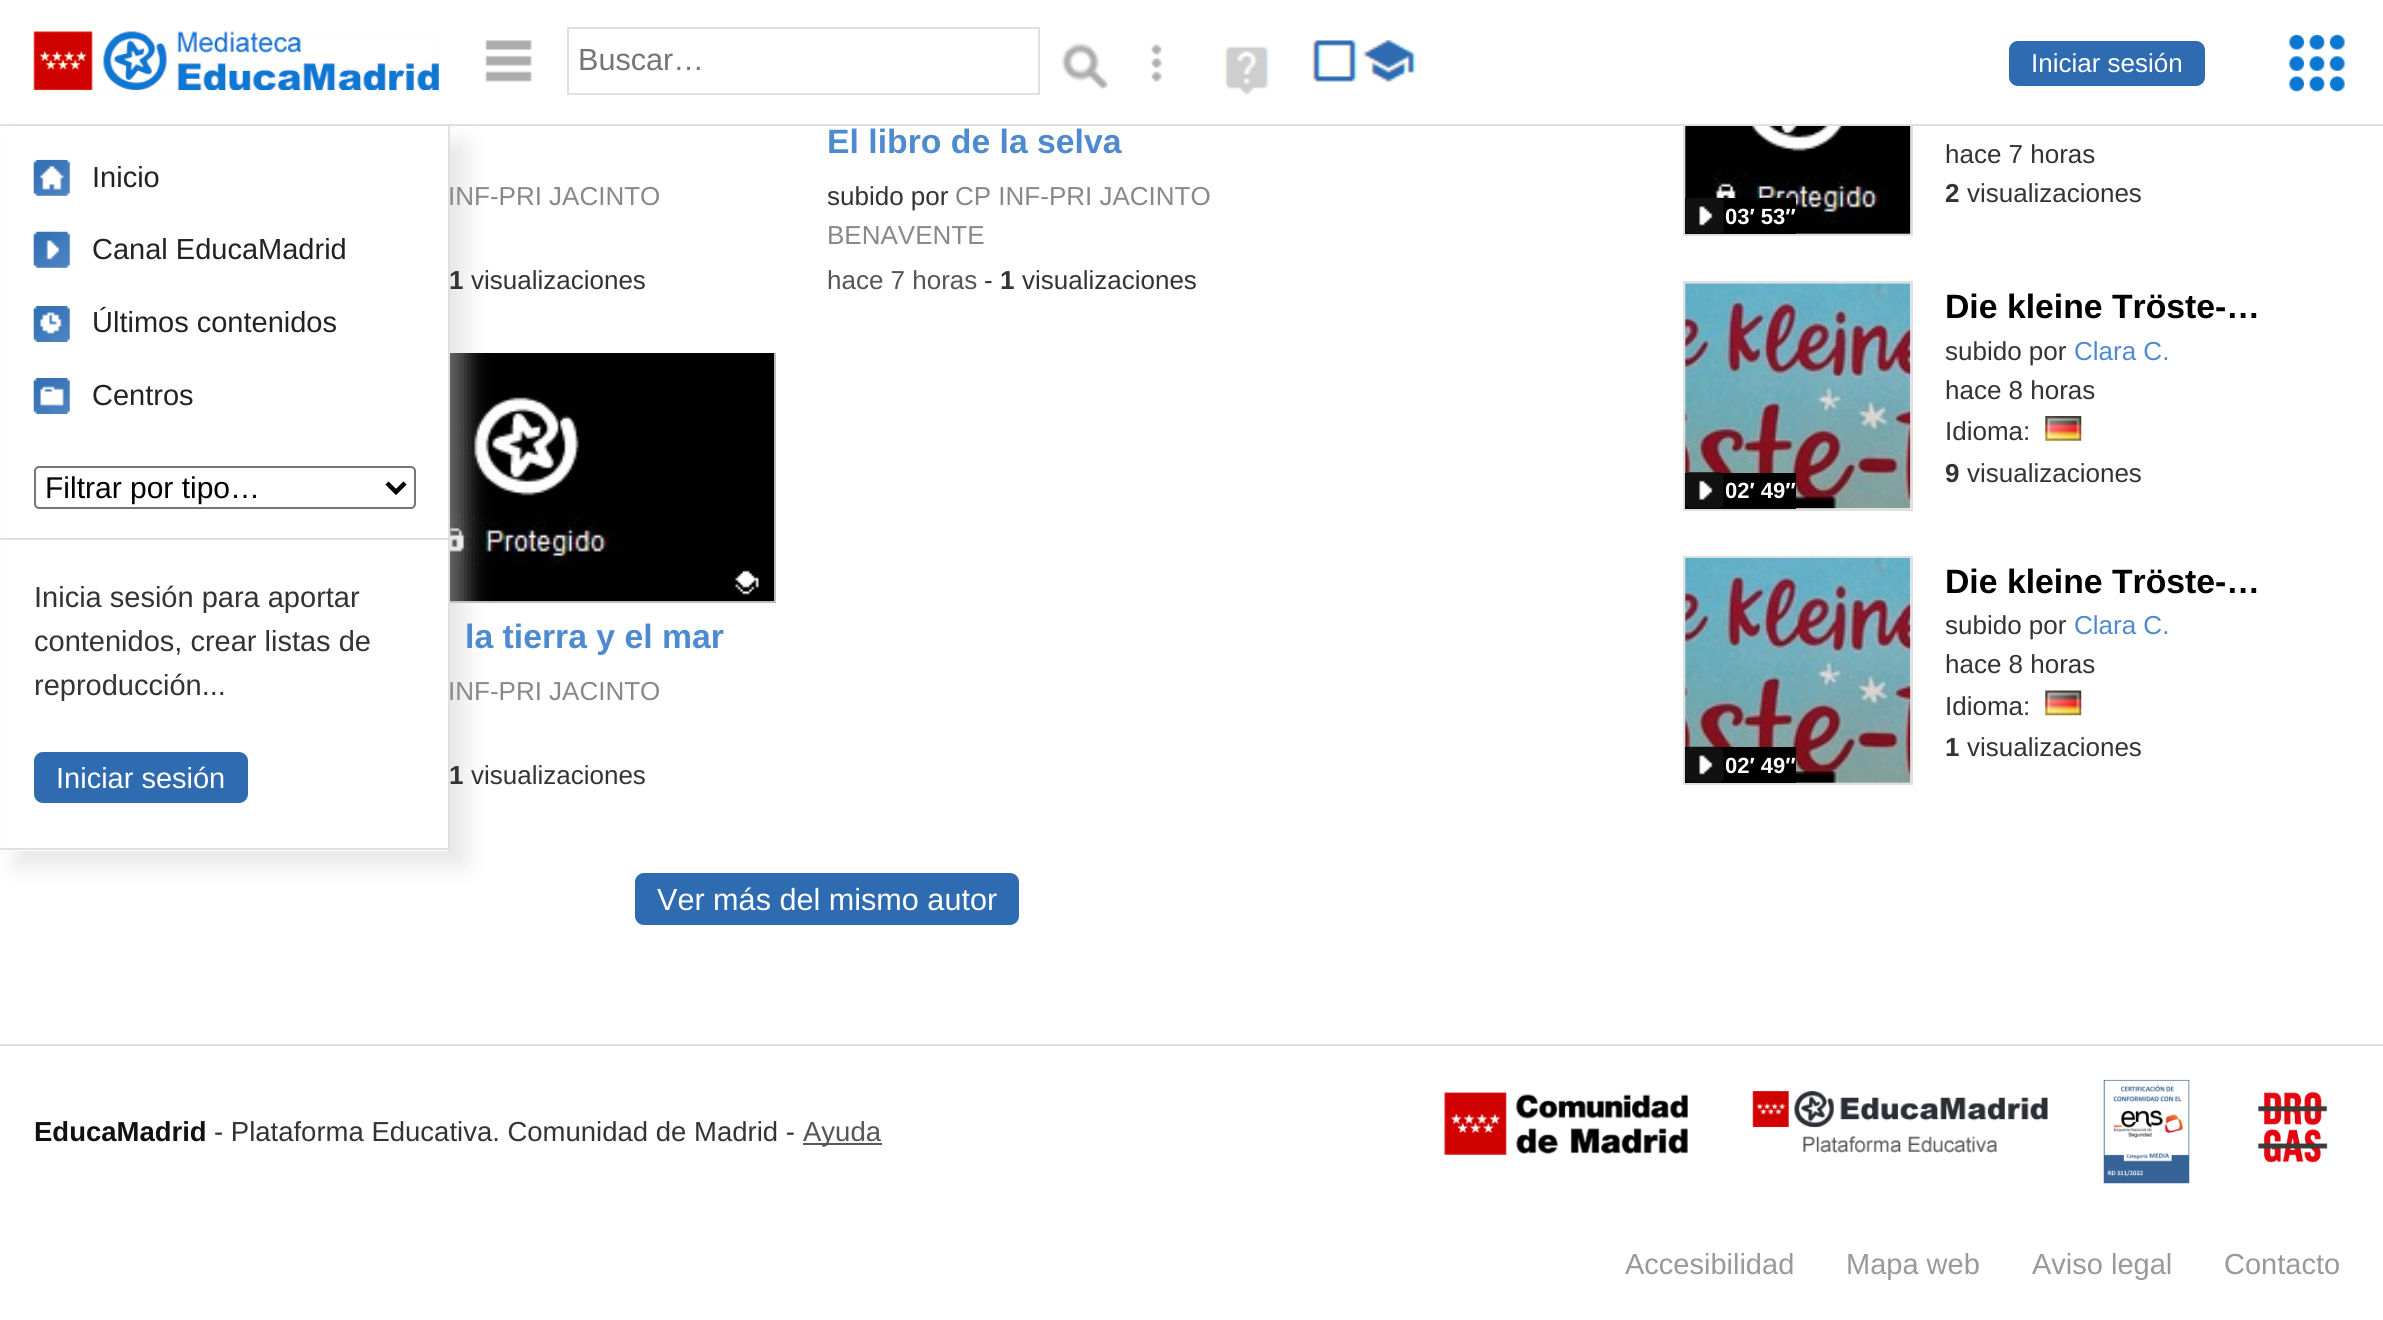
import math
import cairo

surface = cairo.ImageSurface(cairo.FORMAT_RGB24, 2383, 1320)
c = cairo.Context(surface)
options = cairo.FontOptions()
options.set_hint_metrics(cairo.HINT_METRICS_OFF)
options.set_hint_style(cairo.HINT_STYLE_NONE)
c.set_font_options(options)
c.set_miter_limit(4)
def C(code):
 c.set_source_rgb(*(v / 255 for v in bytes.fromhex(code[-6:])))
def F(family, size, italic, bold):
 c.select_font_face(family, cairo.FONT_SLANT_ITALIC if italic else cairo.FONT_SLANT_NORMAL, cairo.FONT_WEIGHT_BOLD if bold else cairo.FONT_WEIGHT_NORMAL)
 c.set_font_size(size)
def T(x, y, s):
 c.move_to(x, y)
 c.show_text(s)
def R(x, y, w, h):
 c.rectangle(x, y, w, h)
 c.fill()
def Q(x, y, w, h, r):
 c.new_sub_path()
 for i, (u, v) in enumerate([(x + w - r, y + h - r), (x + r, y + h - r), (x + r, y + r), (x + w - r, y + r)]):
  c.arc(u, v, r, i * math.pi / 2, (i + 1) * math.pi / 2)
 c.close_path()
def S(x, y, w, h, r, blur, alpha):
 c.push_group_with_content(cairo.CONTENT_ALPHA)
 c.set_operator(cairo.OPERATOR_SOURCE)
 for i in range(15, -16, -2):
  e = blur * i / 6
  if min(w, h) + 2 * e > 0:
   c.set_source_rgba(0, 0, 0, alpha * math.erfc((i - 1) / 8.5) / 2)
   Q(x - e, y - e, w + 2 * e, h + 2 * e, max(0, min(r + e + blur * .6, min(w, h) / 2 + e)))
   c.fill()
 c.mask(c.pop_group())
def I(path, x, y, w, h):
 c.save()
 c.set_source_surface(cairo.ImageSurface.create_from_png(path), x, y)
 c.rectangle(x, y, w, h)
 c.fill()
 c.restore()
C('ffffff')
c.paint()
I('1.png',2289,34,56,58)
c.rectangle(1684,8,228,227)
C('e0e0e0')
c.stroke()
C('ffffff')
R(1683,7,230,117)
c.rectangle(278,354,497,248)
C('bbbbbb')
c.stroke()
I('8.png',450,353,324,217)
C('000000')
c.new_path()
c.move_to(279,565)
c.line_to(769,565)
c.curve_to(772,565,774,567,774,570)
c.line_to(774,601)
c.line_to(279,601)
c.close_path()
c.fill()
C('cecece')
S(16,142,450,724,0,11,.5)
C('e0e0e0')
R(0,124,2383,2)
I('2.png',33,31,406,60)
I('3.png',485,40,47,42)
c.rectangle(568,28,471,66)
c.stroke()
F('Liberation Sans',30.6,0,0)
C('757575')
T(578,70,'Buscar…')
I('4.png',1061,42,47,48)
I('5.png',1151,44,11,38)
I('6.png',1223,46,47,49)
I('7.png',1311,40,105,42)
C('2f6bb0')
Q(2009,41,196,45,9)
c.fill()
F('Liberation Sans',26,0,0)
C('ffffff')
T(2031,72,'Iniciar sesión')
C('888888')
T(448,205,'INF-PRI JACINTO')
F('Liberation Sans',26,0,1)
C('333333')
T(449,289,'1')
F('Liberation Sans',26,0,0)
T(471,289,'visualizaciones')
F('Liberation Sans',33.75,0,1)
C('4e8ad0')
T(827,153,'El libro de la selva')
F('Liberation Sans',26,0,0)
C('333333')
T(827,205,'subido por')
C('888888')
T(955,205,'CP INF-PRI JACINTO')
T(827,244,'BENAVENTE')
C('555555')
T(827,289,'hace 7 horas')
C('333333')
T(984,289,'-')
F('Liberation Sans',26,0,1)
T(1000,289,'1')
F('Liberation Sans',26,0,0)
T(1022,289,'visualizaciones')
I('9.png',735,570,24,25)
F('Liberation Sans',33.75,0,1)
C('4e8ad0')
T(465,648,'la tierra y el mar')
F('Liberation Sans',26,0,0)
C('888888')
T(448,700,'INF-PRI JACINTO')
F('Liberation Sans',26,0,1)
C('333333')
T(449,784,'1')
F('Liberation Sans',26,0,0)
T(471,784,'visualizaciones')
C('2f6bb0')
Q(635,873,384,52,9)
c.fill()
F('Liberation Sans',30.6,0,0)
C('ffffff')
T(657,910,'Ver más del mismo autor')
I('10.png',1685,126,226,108)
F('Liberation Sans',26,0,0)
C('333333')
T(1945,163,'hace 7 horas')
F('Liberation Sans',26,0,1)
T(1945,202,'2')
F('Liberation Sans',26,0,0)
T(1967,202,'visualizaciones')
C('000000')
R(1685,198,111,36)
I('11.png',1685,197,39,37)
F('Liberation Sans',22,0,1)
C('ffffff')
T(1725,224,'03′ 53″')
c.rectangle(1684,282,228,228)
C('e0e0e0')
c.stroke()
I('12.png',1685,283,226,226)
F('Liberation Sans',33.75,0,1)
C('000000')
T(1945,318,'Die kleine Tröste-…')
F('Liberation Sans',26,0,0)
C('333333')
T(1945,360,'subido por')
C('4e8ad0')
T(2074,360,'Clara C.')
C('333333')
T(1945,399,'hace 8 horas')
T(1945,440,'Idioma:')
I('13.png',2045,416,37,25)
F('Liberation Sans',26,0,1)
T(1945,482,'9')
F('Liberation Sans',26,0,0)
T(1967,482,'visualizaciones')
C('000000')
R(1685,473,111,36)
I('14.png',1685,472,39,37)
F('Liberation Sans',22,0,1)
C('ffffff')
T(1725,498,'02′ 49″')
c.rectangle(1684,557,228,227)
C('e0e0e0')
c.stroke()
I('15.png',1685,557,226,226)
F('Liberation Sans',33.75,0,1)
C('000000')
T(1945,593,'Die kleine Tröste-…')
F('Liberation Sans',26,0,0)
C('333333')
T(1945,634,'subido por')
C('4e8ad0')
T(2074,634,'Clara C.')
C('333333')
T(1945,673,'hace 8 horas')
T(1945,715,'Idioma:')
I('16.png',2045,690,37,26)
F('Liberation Sans',26,0,1)
T(1945,756,'1')
F('Liberation Sans',26,0,0)
T(1967,756,'visualizaciones')
C('000000')
R(1685,747,111,36)
I('17.png',1685,746,39,37)
F('Liberation Sans',22,0,1)
C('ffffff')
T(1725,773,'02′ 49″')
C('e0e0e0')
R(0,1044,2383,2)
F('Liberation Sans',27.5,0,1)
C('111111')
T(34,1141,'EducaMadrid')
F('Liberation Sans',27.5,0,0)
C('333333')
T(214,1141,'- Plataforma Educativa. Comunidad de Madrid -')
C('585858')
R(803,1143,79,2)
C('555555')
T(803,1141,'Ayuda')
I('18.png',1444,1092,244,63)
I('19.png',1752,1091,296,62)
I('20.png',2103,1079,87,105)
I('21.png',2258,1091,70,72)
F('Liberation Sans',29,0,0)
C('999999')
T(1625,1274,'Accesibilidad')
T(1846,1274,'Mapa web')
T(2032,1274,'Aviso legal')
T(2224,1274,'Contacto')
C('ffffff')
R(2,128,446,723)
C('e0e0e0')
R(448,126,2,725)
R(0,848,450,2)
I('22.png',33,159,37,37)
C('222222')
T(92,187,'Inicio')
I('23.png',33,231,37,37)
T(92,259,'Canal EducaMadrid')
I('24.png',33,306,37,36)
T(92,332,'Últimos contenidos')
I('25.png',33,378,37,36)
T(92,405,'Centros')
Q(35,467,380,41,4)
C('767676')
c.stroke()
c.new_path()
c.move_to(387,483)
c.line_to(396,492)
c.line_to(405,483)
C('000000')
c.set_line_width(4.5)
c.stroke()
F('Liberation Sans',30,0,0)
T(45,498,'Filtrar por tipo…')
C('e0e0e0')
R(0,538,448,2)
F('Liberation Sans',29,0,0)
C('333333')
T(34,607,'Inicia sesión para aportar')
T(34,651,'contenidos, crear listas de')
T(34,695,'reproducción...')
C('2f6bb0')
Q(34,752,214,51,9)
c.fill()
C('ffffff')
T(56,788,'Iniciar sesión')
surface.write_to_png('o.png')
